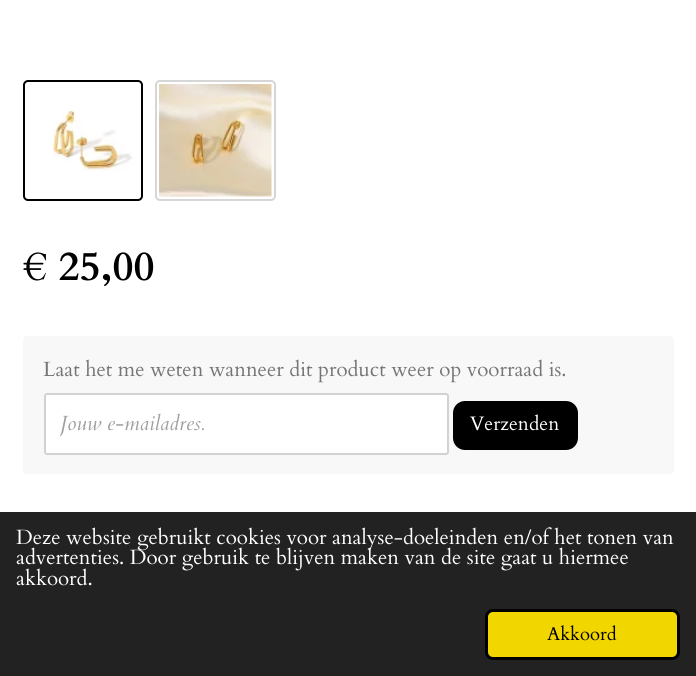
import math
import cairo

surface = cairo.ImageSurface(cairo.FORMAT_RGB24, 696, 676)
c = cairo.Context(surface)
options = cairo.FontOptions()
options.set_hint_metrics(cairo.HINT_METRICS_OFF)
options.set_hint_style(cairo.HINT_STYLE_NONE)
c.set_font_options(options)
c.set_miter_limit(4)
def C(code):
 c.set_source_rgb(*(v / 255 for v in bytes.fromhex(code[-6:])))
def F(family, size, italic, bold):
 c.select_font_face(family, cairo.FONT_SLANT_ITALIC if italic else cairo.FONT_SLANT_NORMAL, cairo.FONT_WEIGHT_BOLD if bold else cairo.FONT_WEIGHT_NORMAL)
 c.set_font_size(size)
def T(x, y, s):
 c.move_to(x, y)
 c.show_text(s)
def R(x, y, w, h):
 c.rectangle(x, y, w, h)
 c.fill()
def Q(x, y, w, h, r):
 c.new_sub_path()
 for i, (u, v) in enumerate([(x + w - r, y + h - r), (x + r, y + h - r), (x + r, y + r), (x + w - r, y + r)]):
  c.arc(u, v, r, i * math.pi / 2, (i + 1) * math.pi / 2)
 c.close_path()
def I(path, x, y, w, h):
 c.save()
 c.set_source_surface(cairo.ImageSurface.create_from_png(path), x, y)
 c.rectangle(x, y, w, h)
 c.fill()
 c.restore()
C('ffffff')
c.paint()
Q(24,81,118,119,4)
C('000000')
c.stroke()
I('1.png',52,110,81,61)
Q(156,81,119,119,4)
C('d6d6d6')
c.stroke()
I('2.png',159,84,113,113)
F('Cardo',41,0,1)
C('000000')
T(23,280,'€ 25,00')
C('f8f8f8')
Q(23,336,651,138,4)
c.fill()
F('Cardo',20.55,0,0)
C('757575')
T(43,376,'Laat het me weten wanneer dit product weer op voorraad is.')
C('ffffff')
Q(44,393,405,62,3)
c.fill()
Q(45,394,403,60,2)
c.set_source_rgba(0.651,0.651,0.651,0.5)
c.stroke()
c.save()
c.rectangle(60,410,372,28)
c.clip()
F('Cardo',20.55,1,0)
C('9e9e9e')
T(60,430,'Jouw e-mailadres.')
c.restore()
C('000000')
Q(453,401,125,49,12)
c.fill()
F('Cardo',19.5,0,0)
C('ffffff')
T(470,430,'Verzenden')
C('222222')
R(0,512,696,164)
F('Cardo',20.55,0,0)
C('ffffff')
T(16,544,'Deze website gebruikt cookies voor analyse-doeleinden en/of het tonen van')
T(16,564,'advertenties. Door gebruik te blijven maken van de site gaat u hiermee')
T(16,585,'akkoord.')
C('f1d600')
Q(486.5,610.5,192,48,6.5)
c.fill_preserve()
C('000000')
c.set_line_width(3)
c.stroke()
F('Cardo',18.5,0,0)
T(547,640,'Akkoord')
surface.write_to_png('o.png')
